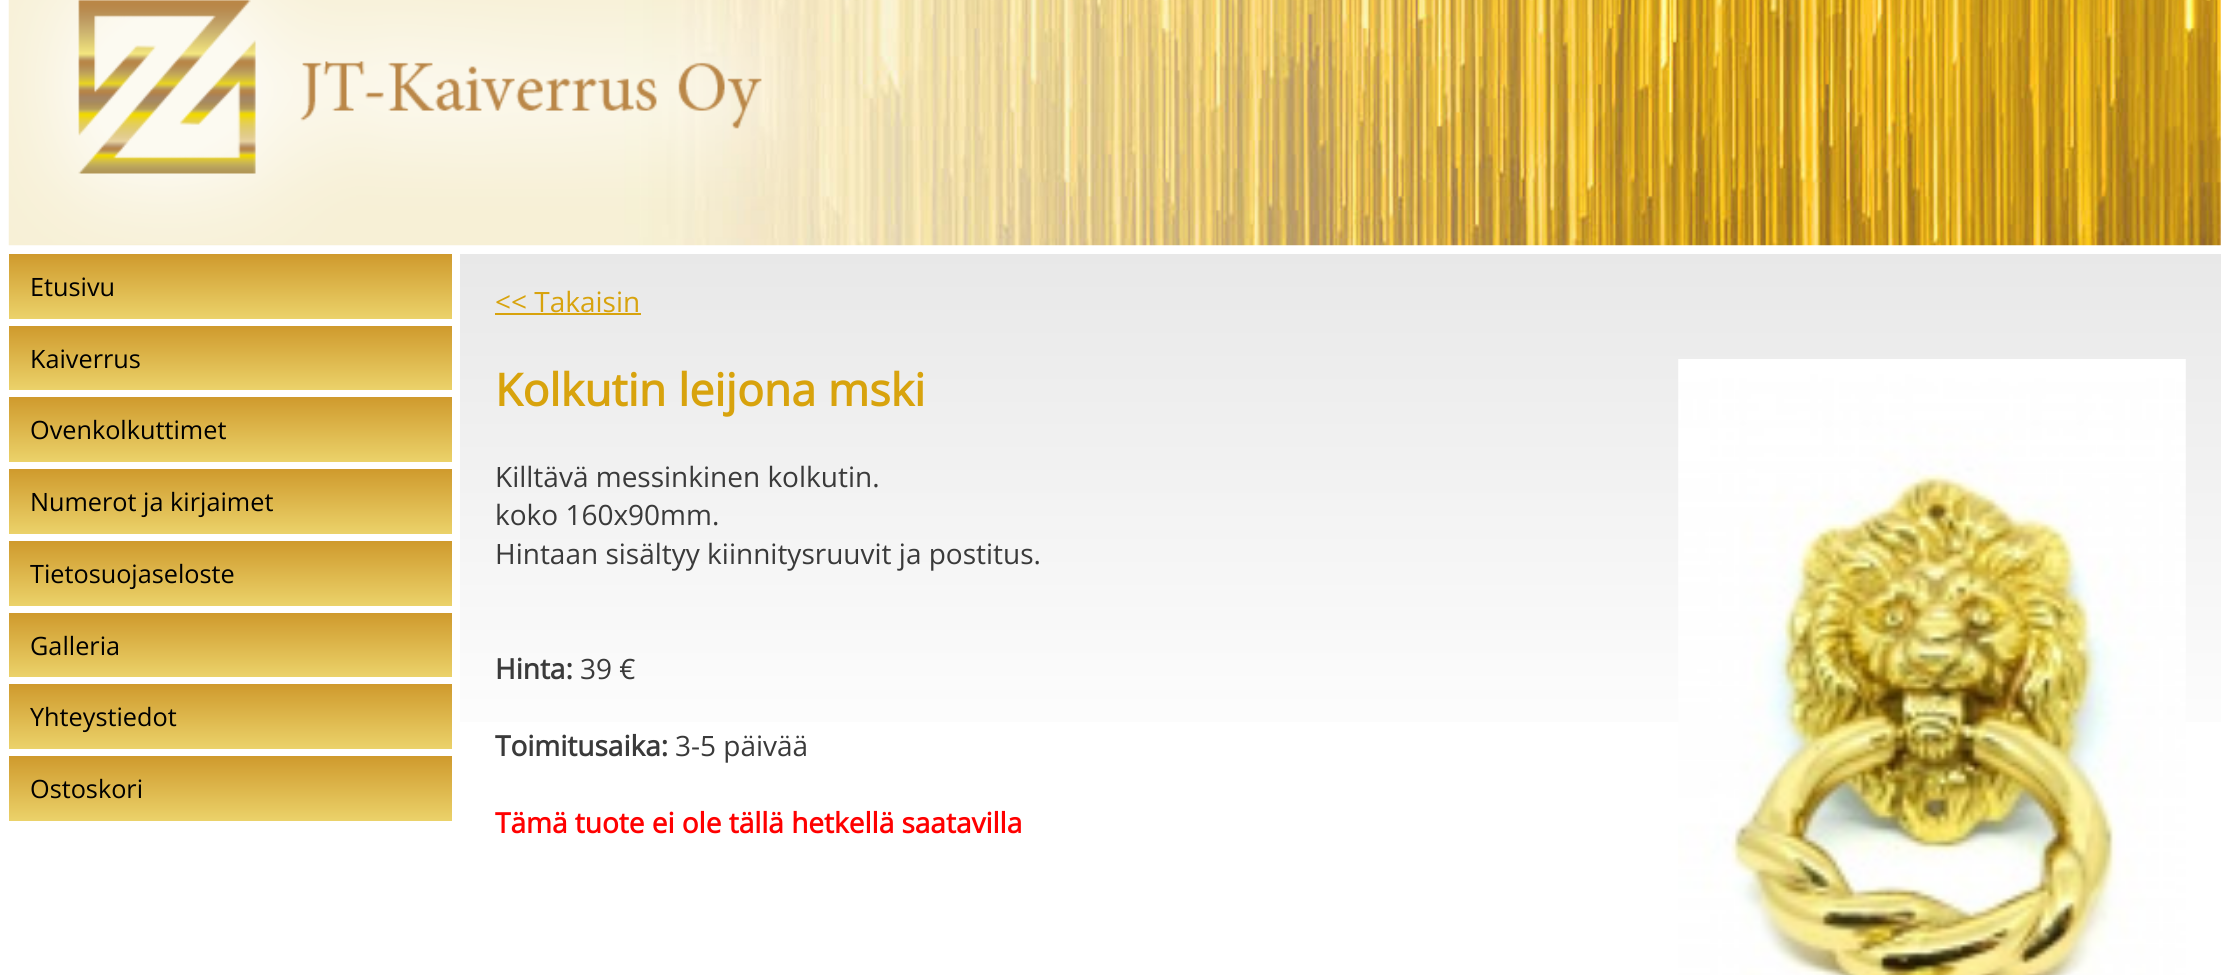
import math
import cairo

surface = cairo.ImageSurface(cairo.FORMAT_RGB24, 2228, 975)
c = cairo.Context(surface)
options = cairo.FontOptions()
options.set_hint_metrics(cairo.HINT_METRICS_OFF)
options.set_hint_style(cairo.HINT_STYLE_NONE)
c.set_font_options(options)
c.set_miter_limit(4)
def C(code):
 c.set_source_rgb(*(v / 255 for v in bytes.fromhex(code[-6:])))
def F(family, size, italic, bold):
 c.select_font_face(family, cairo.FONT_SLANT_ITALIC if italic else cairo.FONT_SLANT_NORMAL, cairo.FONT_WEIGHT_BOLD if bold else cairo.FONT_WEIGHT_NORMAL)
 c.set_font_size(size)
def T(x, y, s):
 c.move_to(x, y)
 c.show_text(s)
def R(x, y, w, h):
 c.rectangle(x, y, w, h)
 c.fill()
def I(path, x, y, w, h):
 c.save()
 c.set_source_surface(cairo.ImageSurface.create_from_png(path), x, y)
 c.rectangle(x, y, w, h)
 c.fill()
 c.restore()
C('ffffff')
c.paint()
I('1.png',8,0,2213,246)
I('2.png',9,0,807,244)
gradient = cairo.LinearGradient(230,254,230,319)
gradient.add_color_stop_rgba(0,0.812,0.604,0.176,1)
gradient.add_color_stop_rgba(1,0.922,0.824,0.416,1)
c.set_source(gradient)
R(9,254,443,65)
F('Open Sans',25.25,0,0)
C('000000')
T(30,296,'Etusivu')
gradient = cairo.LinearGradient(230,326,230,390)
gradient.add_color_stop_rgba(0,0.812,0.604,0.176,1)
gradient.add_color_stop_rgba(1,0.922,0.824,0.416,1)
c.set_source(gradient)
R(9,326,443,64)
C('000000')
T(30,368,'Kaiverrus')
gradient = cairo.LinearGradient(230,397,230,462)
gradient.add_color_stop_rgba(0,0.812,0.604,0.176,1)
gradient.add_color_stop_rgba(1,0.922,0.824,0.416,1)
c.set_source(gradient)
R(9,397,443,65)
C('000000')
T(30,439,'Ovenkolkuttimet')
gradient = cairo.LinearGradient(230,469,230,534)
gradient.add_color_stop_rgba(0,0.812,0.604,0.176,1)
gradient.add_color_stop_rgba(1,0.922,0.824,0.416,1)
c.set_source(gradient)
R(9,469,443,65)
C('000000')
T(30,511,'Numerot ja kirjaimet')
gradient = cairo.LinearGradient(230,541,230,606)
gradient.add_color_stop_rgba(0,0.812,0.604,0.176,1)
gradient.add_color_stop_rgba(1,0.922,0.824,0.416,1)
c.set_source(gradient)
R(9,541,443,65)
C('000000')
T(30,583,'Tietosuojaseloste')
gradient = cairo.LinearGradient(230,613,230,677)
gradient.add_color_stop_rgba(0,0.812,0.604,0.176,1)
gradient.add_color_stop_rgba(1,0.922,0.824,0.416,1)
c.set_source(gradient)
R(9,613,443,64)
C('000000')
T(30,655,'Galleria')
gradient = cairo.LinearGradient(230,684,230,749)
gradient.add_color_stop_rgba(0,0.812,0.604,0.176,1)
gradient.add_color_stop_rgba(1,0.922,0.824,0.416,1)
c.set_source(gradient)
R(9,684,443,65)
C('000000')
T(30,726,'Yhteystiedot')
gradient = cairo.LinearGradient(230,756,230,821)
gradient.add_color_stop_rgba(0,0.812,0.604,0.176,1)
gradient.add_color_stop_rgba(1,0.922,0.824,0.416,1)
c.set_source(gradient)
R(9,756,443,65)
C('000000')
T(30,798,'Ostoskori')
gradient = cairo.LinearGradient(1341,254,1341,779)
gradient.add_color_stop_rgba(0,0.91,0.91,0.91,1)
gradient.add_color_stop_rgba(1,1,1,1,1)
c.set_source(gradient)
R(460,254,1761,468)
F('Open Sans',28,0,0)
C('d8a30d')
T(495,312,'<< Takaisin')
R(495,313,146,2)
F('Open Sans',44.75,0,1)
T(495,406,'Kolkutin leijona mski')
I('3.png',1678,359,508,616)
F('Open Sans',28,0,0)
C('3a3a3a')
T(495,487,'Killtävä messinkinen kolkutin.')
T(495,525,'koko 160x90mm.')
T(495,564,'Hintaan sisältyy kiinnitysruuvit ja postitus.')
F('Open Sans',28,0,1)
T(495,679,'Hinta:')
F('Open Sans',28,0,0)
T(580,679,'39 €')
F('Open Sans',28,0,1)
T(495,756,'Toimitusaika:')
F('Open Sans',28,0,0)
T(675,756,'3-5 päivää')
F('Open Sans',28,0,1)
C('ff0000')
T(495,833,'Tämä tuote ei ole tällä hetkellä saatavilla')
surface.write_to_png('o.png')
